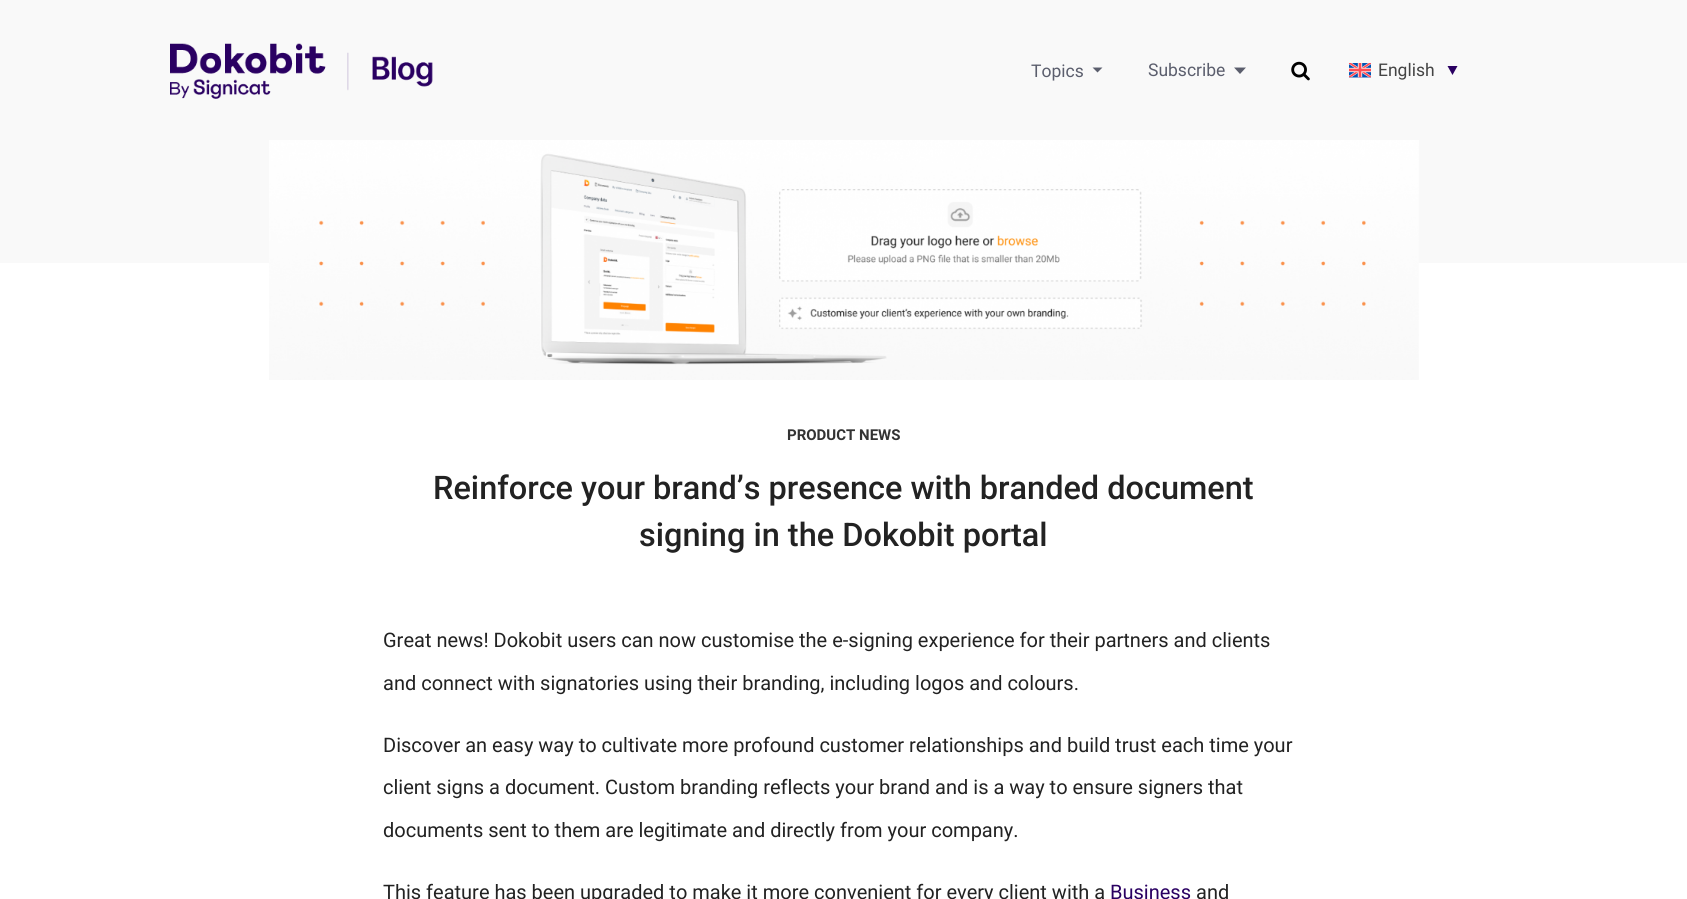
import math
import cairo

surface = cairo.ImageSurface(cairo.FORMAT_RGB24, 1687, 899)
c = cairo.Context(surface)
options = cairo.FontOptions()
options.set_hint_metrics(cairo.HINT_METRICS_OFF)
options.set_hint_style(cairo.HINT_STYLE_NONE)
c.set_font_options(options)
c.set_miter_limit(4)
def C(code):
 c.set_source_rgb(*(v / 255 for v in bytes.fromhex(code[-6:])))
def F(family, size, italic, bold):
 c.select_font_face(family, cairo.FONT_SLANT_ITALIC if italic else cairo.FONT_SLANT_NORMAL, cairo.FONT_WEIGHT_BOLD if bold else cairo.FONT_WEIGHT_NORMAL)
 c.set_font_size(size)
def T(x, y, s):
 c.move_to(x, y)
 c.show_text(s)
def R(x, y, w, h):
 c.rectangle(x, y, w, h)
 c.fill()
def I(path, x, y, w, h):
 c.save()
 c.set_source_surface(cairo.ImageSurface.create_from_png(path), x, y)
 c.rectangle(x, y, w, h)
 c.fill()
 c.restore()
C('ffffff')
c.paint()
C('f9f9f9')
R(0,0,1687,263)
I('1.png',170,43,263,56)
F('Roboto',17.5,0,0)
C('5b5e6d')
T(1031,77,'Topics')
c.new_path()
c.move_to(1092.5,67.5)
c.line_to(1102.5,67.5)
c.line_to(1097.5,72.5)
c.close_path()
c.fill()
T(1148,76,'Subscribe')
c.new_path()
c.move_to(1234,67.5)
c.line_to(1246,67.5)
c.line_to(1240,74)
c.close_path()
c.fill()
I('2.png',1291,61,19,20)
I('3.png',1349,63,22,15)
C('444444')
T(1378,76,'English')
C('2a0062')
c.new_path()
c.move_to(1447.5,66)
c.line_to(1457.5,66)
c.line_to(1452.5,75)
c.close_path()
c.fill()
I('4.png',269,140,1150,240)
F('Roboto',15,0,1)
C('333333')
T(787,440,'PRODUCT NEWS')
F('Roboto Medium',32.5,0,0)
C('222222')
T(433,499,'Reinforce your brand’s presence with branded document')
T(639,546,'signing in the Dokobit portal')
F('Roboto',20,0,0)
T(383,647,'Great news! Dokobit users can now customise the e-signing experience for their partners and clients')
T(383,690,'and connect with signatories using their branding, including logos and colours.')
T(383,752,'Discover an easy way to cultivate more profound customer relationships and build trust each time your')
T(383,794,'client signs a document. Custom branding reflects your brand and is a way to ensure signers that')
T(383,837,'documents sent to them are legitimate and directly from your company.')
T(383,899,'This feature has been upgraded to make it more convenient for every client with a')
C('2a0062')
T(1110,899,'Business')
C('222222')
T(1196,899,'and')
surface.write_to_png('o.png')
